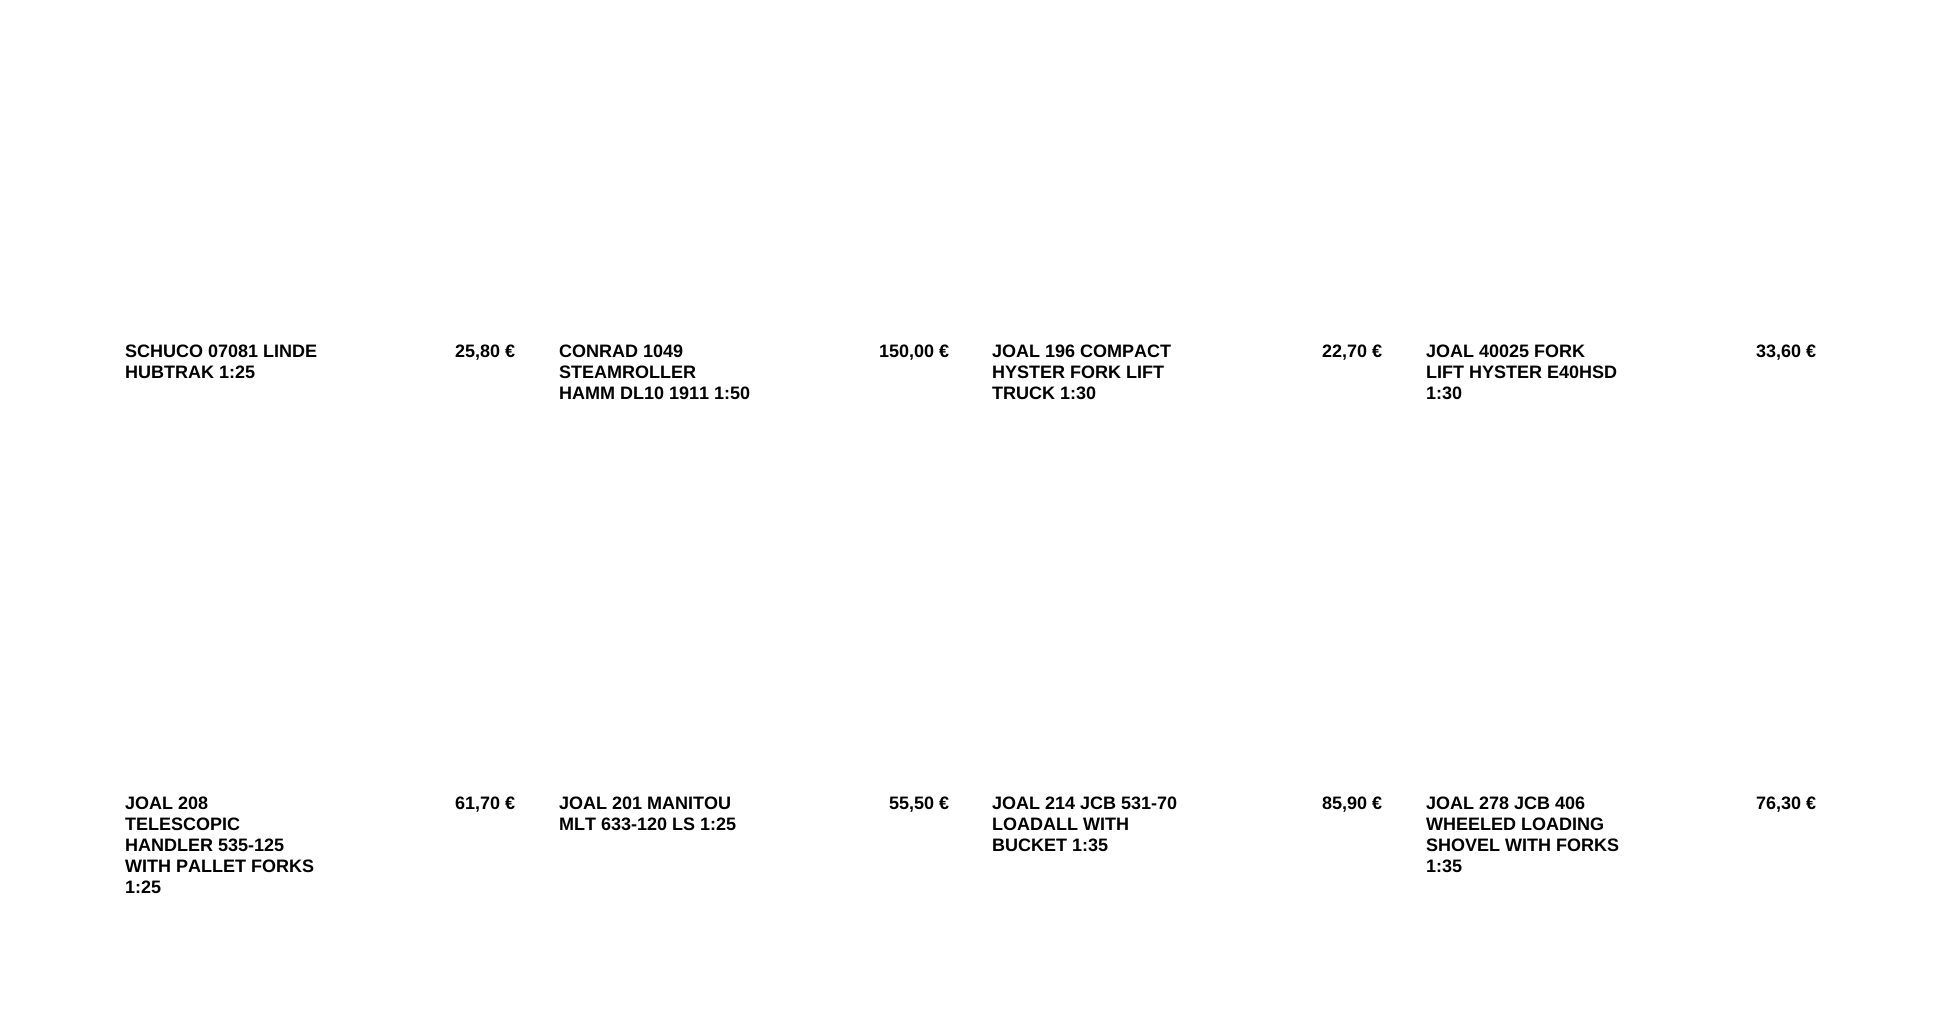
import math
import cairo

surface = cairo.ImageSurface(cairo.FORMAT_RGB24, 1960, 1032)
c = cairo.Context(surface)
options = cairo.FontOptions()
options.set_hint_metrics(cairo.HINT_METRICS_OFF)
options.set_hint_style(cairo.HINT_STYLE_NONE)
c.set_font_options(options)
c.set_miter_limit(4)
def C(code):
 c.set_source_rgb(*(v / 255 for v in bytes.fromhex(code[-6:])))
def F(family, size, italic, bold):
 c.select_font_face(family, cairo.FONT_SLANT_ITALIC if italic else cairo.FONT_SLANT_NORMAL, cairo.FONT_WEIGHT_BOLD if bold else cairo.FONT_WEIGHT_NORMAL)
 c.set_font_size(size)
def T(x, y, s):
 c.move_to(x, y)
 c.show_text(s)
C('ffffff')
c.paint()
F('Liberation Sans',18,0,1)
C('000000')
T(125,357,'SCHUCO 07081 LINDE')
T(125,378,'HUBTRAK 1:25')
T(455,357,'25,80 €')
T(559,357,'CONRAD 1049')
T(559,378,'STEAMROLLER')
T(559,399,'HAMM DL10 1911 1:50')
T(879,357,'150,00 €')
T(992,357,'JOAL 196 COMPACT')
T(992,378,'HYSTER FORK LIFT')
T(992,399,'TRUCK 1:30')
T(1322,357,'22,70 €')
T(1426,357,'JOAL 40025 FORK')
T(1426,378,'LIFT HYSTER E40HSD')
T(1426,399,'1:30')
T(1756,357,'33,60 €')
T(125,809,'JOAL 208')
T(125,830,'TELESCOPIC')
T(125,851,'HANDLER 535-125')
T(125,872,'WITH PALLET FORKS')
T(125,893,'1:25')
T(455,809,'61,70 €')
T(559,809,'JOAL 201 MANITOU')
T(559,830,'MLT 633-120 LS 1:25')
T(889,809,'55,50 €')
T(992,809,'JOAL 214 JCB 531-70')
T(992,830,'LOADALL WITH')
T(992,851,'BUCKET 1:35')
T(1322,809,'85,90 €')
T(1426,809,'JOAL 278 JCB 406')
T(1426,830,'WHEELED LOADING')
T(1426,851,'SHOVEL WITH FORKS')
T(1426,872,'1:35')
T(1756,809,'76,30 €')
surface.write_to_png('o.png')
